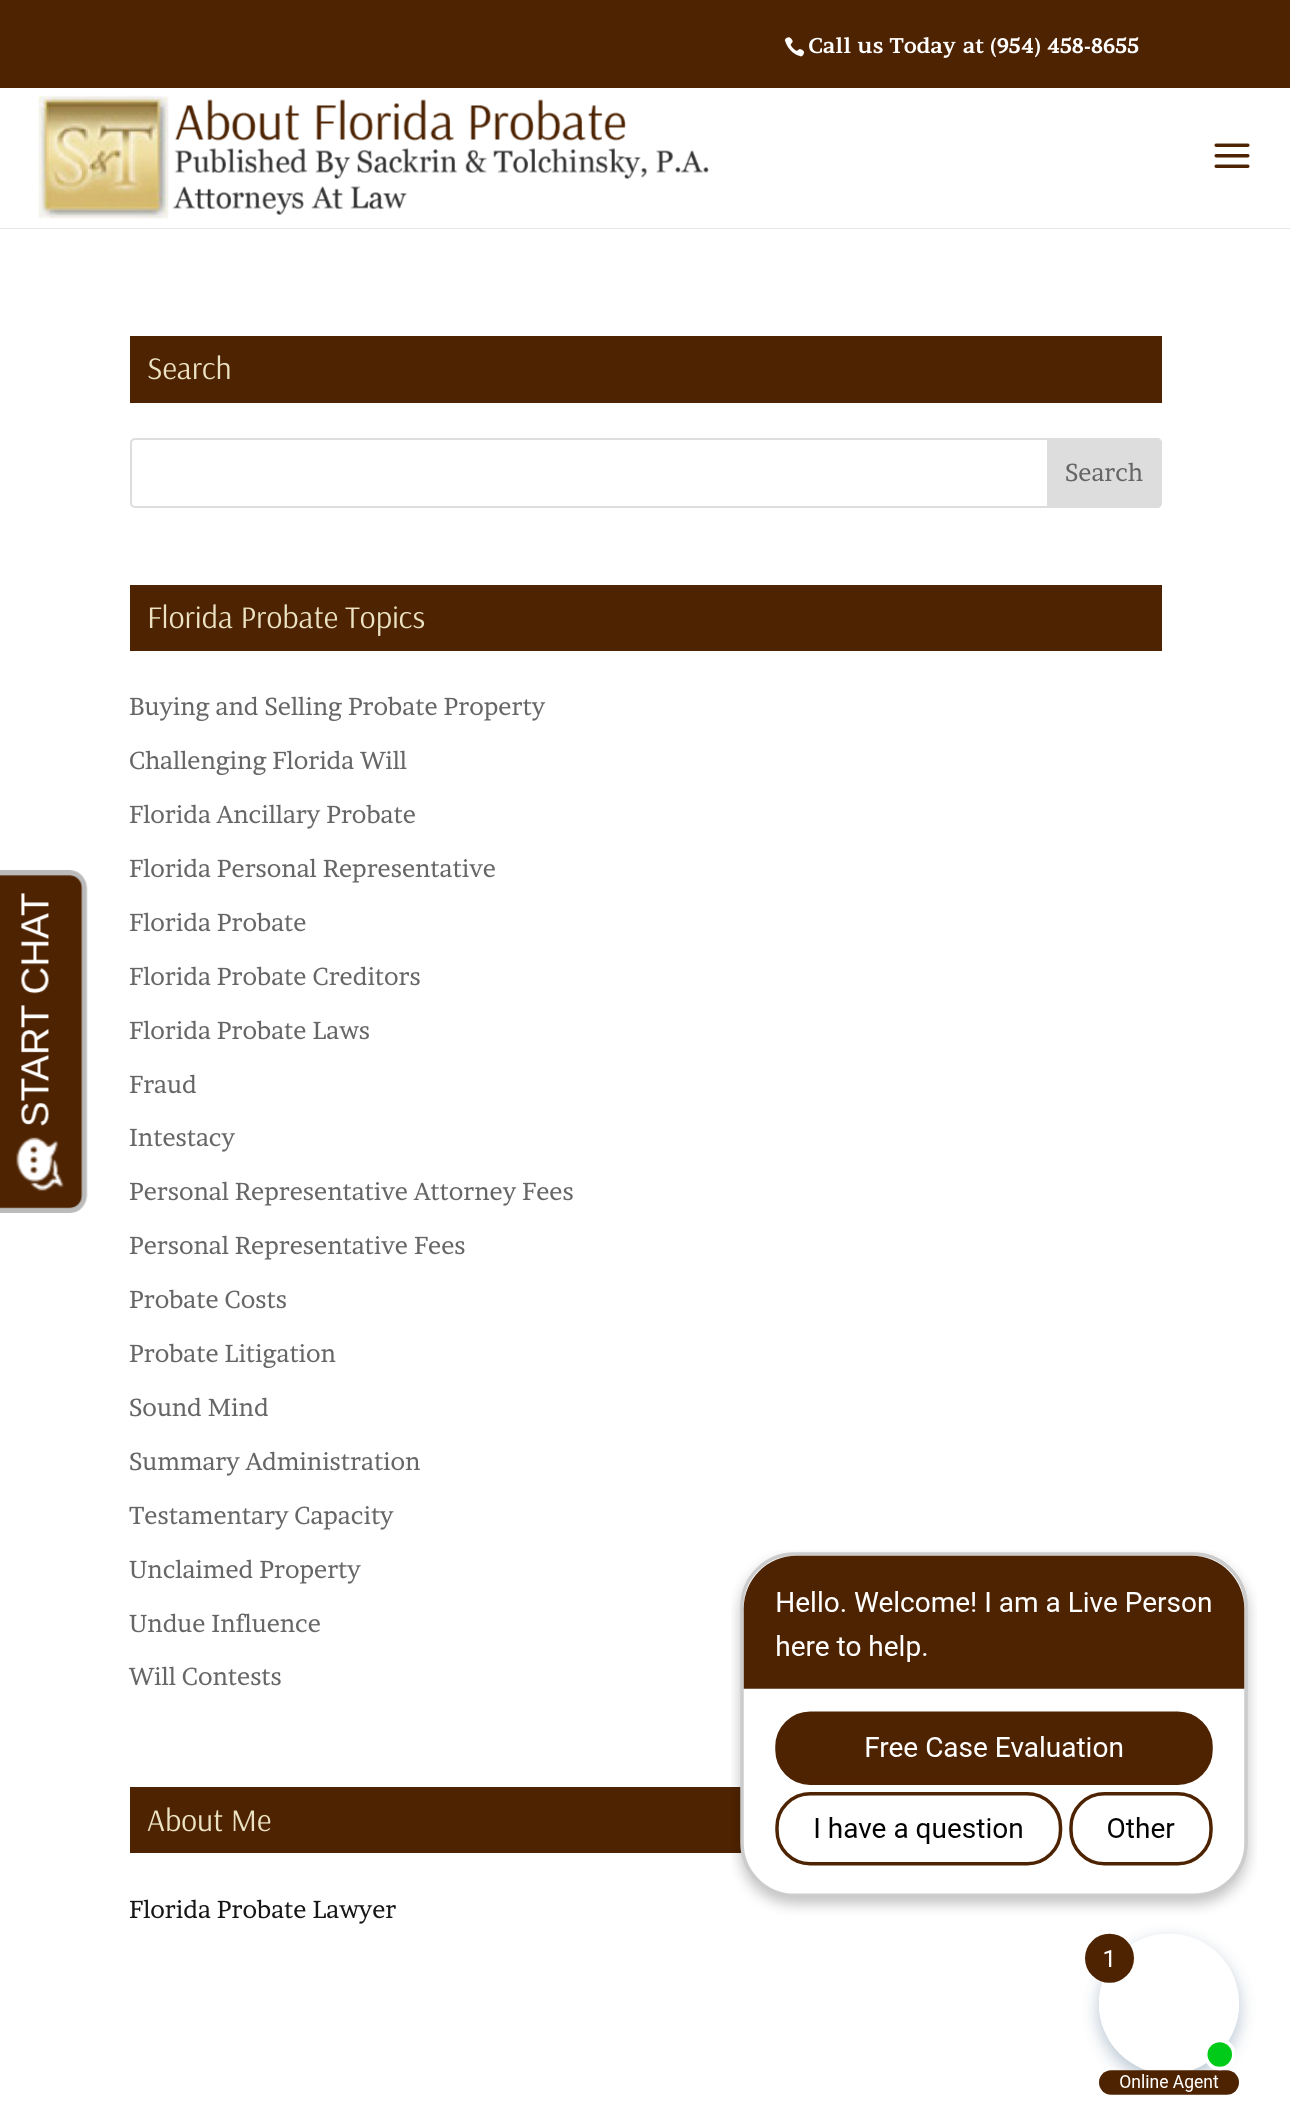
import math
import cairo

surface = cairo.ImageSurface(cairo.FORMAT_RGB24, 1290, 2115)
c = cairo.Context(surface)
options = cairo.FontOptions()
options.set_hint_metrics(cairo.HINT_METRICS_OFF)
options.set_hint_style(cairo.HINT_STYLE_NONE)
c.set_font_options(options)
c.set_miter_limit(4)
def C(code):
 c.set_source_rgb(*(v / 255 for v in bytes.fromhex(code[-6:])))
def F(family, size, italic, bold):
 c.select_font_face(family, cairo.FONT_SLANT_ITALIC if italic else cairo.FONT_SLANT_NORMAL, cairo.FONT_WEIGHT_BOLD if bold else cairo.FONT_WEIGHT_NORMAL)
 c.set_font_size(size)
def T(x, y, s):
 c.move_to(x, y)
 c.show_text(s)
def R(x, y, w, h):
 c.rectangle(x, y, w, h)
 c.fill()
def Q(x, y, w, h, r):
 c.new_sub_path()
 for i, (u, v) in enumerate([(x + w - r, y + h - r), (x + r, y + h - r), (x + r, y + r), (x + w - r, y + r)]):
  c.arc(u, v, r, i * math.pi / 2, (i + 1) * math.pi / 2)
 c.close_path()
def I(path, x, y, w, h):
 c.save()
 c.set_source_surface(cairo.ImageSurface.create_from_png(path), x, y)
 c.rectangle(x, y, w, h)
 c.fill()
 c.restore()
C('ffffff')
c.paint()
I('1.png',0,870,88,343)
C('4e2301')
R(0,0,1290,88)
I('2.png',784,37,21,20)
F('Brawler',21,0,1)
C('ffffff')
T(808,53,'Call us Today at (954) 458-8655')
C('e6e6e6')
c.new_path()
c.move_to(0,228)
c.line_to(0,229)
c.line_to(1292,229)
c.line_to(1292,89)
c.line_to(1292,228)
c.close_path()
c.fill()
I('3.png',38,95,671,124)
I('4.png',1214,143,36,25)
C('4e2301')
R(130,336,1032,67)
F('Arsenal',31.5,0,0)
C('eae2c2')
T(147,379,'Search')
Q(131,439,1030,68,4)
C('dddddd')
c.stroke()
c.new_path()
c.move_to(1048,439)
c.line_to(1157,439)
c.curve_to(1159,439,1161,441,1161,443)
c.line_to(1161,503)
c.curve_to(1161,505,1159,507,1157,507)
c.line_to(1048,507)
c.close_path()
c.fill_preserve()
c.stroke()
F('Brawler',24.5,0,0)
C('666666')
T(1065,481,'Search')
C('4e2301')
R(130,585,1032,66)
F('Arsenal',31.5,0,0)
C('eae2c2')
T(147,628,'Florida Probate Topics')
F('Brawler',24.5,0,0)
C('666666')
T(129,715,'Buying and Selling Probate Property')
T(129,769,'Challenging Florida Will')
T(129,823,'Florida Ancillary Probate')
T(129,877,'Florida Personal Representative')
T(129,931,'Florida Probate')
T(129,985,'Florida Probate Creditors')
T(129,1039,'Florida Probate Laws')
T(129,1093,'Fraud')
T(129,1146,'Intestacy')
T(129,1200,'Personal Representative Attorney Fees')
T(129,1254,'Personal Representative Fees')
T(129,1308,'Probate Costs')
T(129,1362,'Probate Litigation')
T(129,1416,'Sound Mind')
T(129,1470,'Summary Administration')
T(129,1524,'Testamentary Capacity')
T(129,1578,'Unclaimed Property')
T(129,1632,'Undue Influence')
T(129,1685,'Will Contests')
C('4e2301')
R(130,1787,612,66)
F('Arsenal',31.5,0,0)
C('eae2c2')
T(147,1831,'About Me')
F('Brawler',24.5,0,0)
C('161616')
T(129,1918,'Florida Probate Lawyer')
I('5.png',731,1550,526,545)
surface.write_to_png('o.png')
